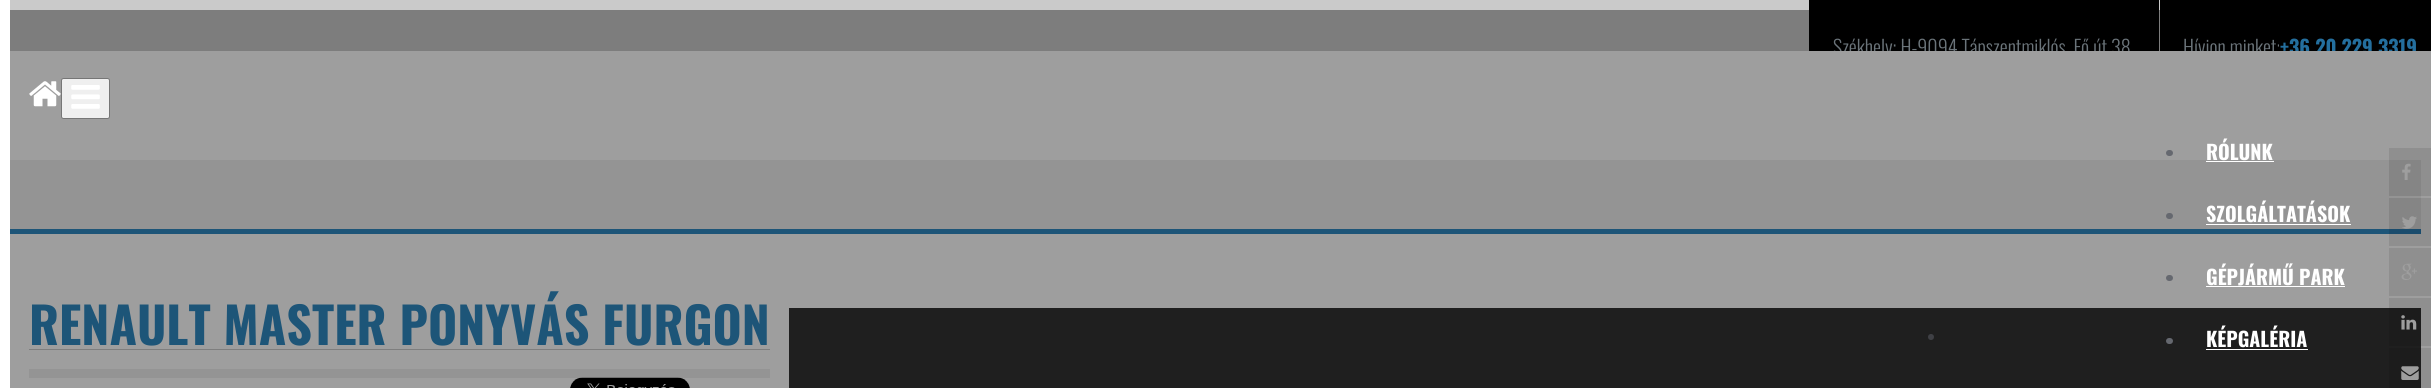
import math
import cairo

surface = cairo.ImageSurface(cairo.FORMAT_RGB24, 2431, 388)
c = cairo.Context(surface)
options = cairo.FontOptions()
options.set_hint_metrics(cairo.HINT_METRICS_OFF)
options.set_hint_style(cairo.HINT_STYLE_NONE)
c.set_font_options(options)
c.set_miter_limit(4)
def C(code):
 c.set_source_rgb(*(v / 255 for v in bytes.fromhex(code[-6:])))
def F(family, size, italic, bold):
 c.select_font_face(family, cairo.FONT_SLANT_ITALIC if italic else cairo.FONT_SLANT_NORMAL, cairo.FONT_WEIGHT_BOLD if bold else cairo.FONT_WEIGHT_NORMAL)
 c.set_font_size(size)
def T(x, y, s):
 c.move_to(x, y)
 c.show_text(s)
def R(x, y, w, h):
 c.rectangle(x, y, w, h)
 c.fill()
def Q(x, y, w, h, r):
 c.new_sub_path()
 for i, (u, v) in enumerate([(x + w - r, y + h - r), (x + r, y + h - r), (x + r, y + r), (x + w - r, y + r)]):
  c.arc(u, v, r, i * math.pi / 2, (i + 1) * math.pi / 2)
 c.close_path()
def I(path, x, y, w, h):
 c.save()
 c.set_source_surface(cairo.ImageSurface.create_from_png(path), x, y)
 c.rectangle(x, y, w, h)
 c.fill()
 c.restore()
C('ffffff')
c.paint()
C('9e9e9e')
R(10,51,2421,297)
C('8f8f8f')
R(2421,348,10,40)
R(2389,298,42,48)
R(2389,198,42,48)
R(2389,148,42,48)
C('cacaca')
R(10,0,2150,10)
C('7d7d7d')
R(10,10,2150,41)
C('000000')
R(1809,0,350,51)
c.save()
c.rectangle(10,0,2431,51)
c.clip()
F('Oswald Light',20,0,0)
C('6b747a')
T(1833,55,'Székhely: H-9094 Tápszentmiklós, Fő út 38')
c.restore()
R(2160,0,271,51)
c.save()
c.rectangle(10,0,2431,51)
c.clip()
F('Oswald Light',20,0,0)
C('6b747a')
T(2183,55,'Hívjon minket:')
F('Oswald',20,0,1)
C('246f9e')
T(2280,55,'+36 20 229 3319')
c.restore()
I('1.png',29,81,32,26)
C('efefef')
Q(61.5,78.5,48,40,2)
c.fill_preserve()
C('767676')
c.set_line_width(1)
c.stroke()
I('2.png',71,85,29,24)
C('65686f')
Q(2166,150,7,6,3)
c.fill()
C('949494')
R(10,160,2411,69)
F('Oswald',20,0,1)
C('ffffff')
T(2206,160,'RÓLUNK')
R(2206,161,68,1)
C('65686f')
Q(2166,213,7,6,3)
c.fill()
C('ffffff')
T(2206,222,'SZOLGÁLTATÁSOK')
R(2206,224,145,1)
C('65686f')
Q(2166,275,7,6,3)
c.fill()
C('ffffff')
T(2206,285,'GÉPJÁRMŰ PARK')
R(2206,286,139,1)
C('1f1f1f')
R(789,308,1632,80)
C('65686f')
Q(2166,338,7,6,3)
c.fill()
C('ffffff')
T(2206,347,'KÉPGALÉRIA')
R(2206,349,102,1)
C('858585')
R(2389,198,32,31)
R(2389,160,32,36)
C('1d5578')
R(10,229,2379,5)
C('1a4c6d')
R(2389,229,32,5)
C('9e9e9e')
R(10,348,779,40)
C('7e7e7e')
R(29,349,741,1)
F('Oswald',50,0,1)
C('1d5578')
T(29,345,'RENAULT MASTER PONYVÁS FURGON')
C('949494')
R(29,369,741,9)
I('3.png',570,377,120,11)
C('3f4045')
c.arc(1931,337,3,0,2 * math.pi)
c.fill()
I('4.png',2402,163,9,17)
I('5.png',2402,216,15,13)
C('8f8f8f')
R(2389,248,42,48)
I('6.png',2401,263,16,17)
C('1c1c1c')
R(2389,308,32,38)
I('7.png',2401,315,16,15)
R(2389,348,32,40)
I('8.png',2401,366,18,14)
surface.write_to_png('o.png')
